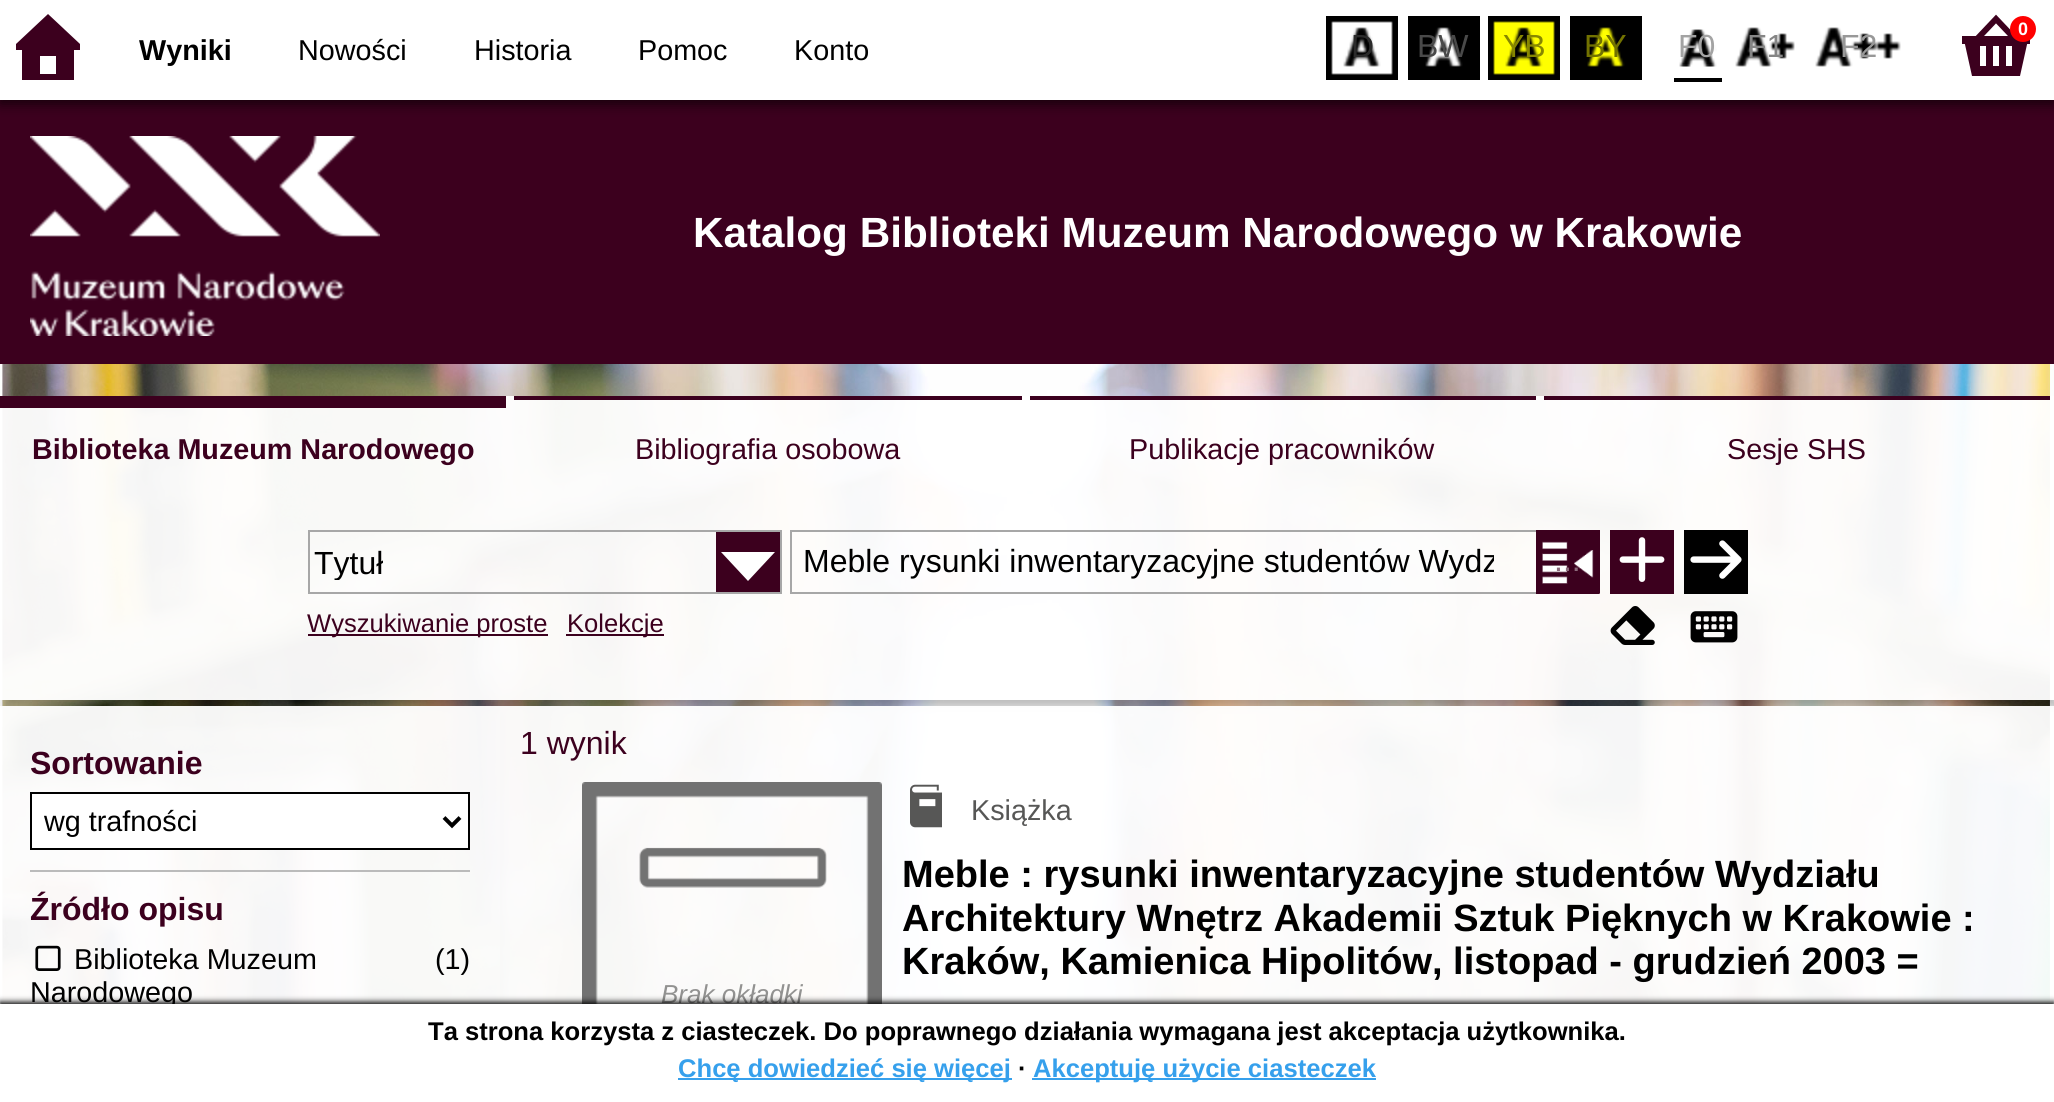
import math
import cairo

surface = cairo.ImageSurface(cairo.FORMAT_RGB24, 2054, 1102)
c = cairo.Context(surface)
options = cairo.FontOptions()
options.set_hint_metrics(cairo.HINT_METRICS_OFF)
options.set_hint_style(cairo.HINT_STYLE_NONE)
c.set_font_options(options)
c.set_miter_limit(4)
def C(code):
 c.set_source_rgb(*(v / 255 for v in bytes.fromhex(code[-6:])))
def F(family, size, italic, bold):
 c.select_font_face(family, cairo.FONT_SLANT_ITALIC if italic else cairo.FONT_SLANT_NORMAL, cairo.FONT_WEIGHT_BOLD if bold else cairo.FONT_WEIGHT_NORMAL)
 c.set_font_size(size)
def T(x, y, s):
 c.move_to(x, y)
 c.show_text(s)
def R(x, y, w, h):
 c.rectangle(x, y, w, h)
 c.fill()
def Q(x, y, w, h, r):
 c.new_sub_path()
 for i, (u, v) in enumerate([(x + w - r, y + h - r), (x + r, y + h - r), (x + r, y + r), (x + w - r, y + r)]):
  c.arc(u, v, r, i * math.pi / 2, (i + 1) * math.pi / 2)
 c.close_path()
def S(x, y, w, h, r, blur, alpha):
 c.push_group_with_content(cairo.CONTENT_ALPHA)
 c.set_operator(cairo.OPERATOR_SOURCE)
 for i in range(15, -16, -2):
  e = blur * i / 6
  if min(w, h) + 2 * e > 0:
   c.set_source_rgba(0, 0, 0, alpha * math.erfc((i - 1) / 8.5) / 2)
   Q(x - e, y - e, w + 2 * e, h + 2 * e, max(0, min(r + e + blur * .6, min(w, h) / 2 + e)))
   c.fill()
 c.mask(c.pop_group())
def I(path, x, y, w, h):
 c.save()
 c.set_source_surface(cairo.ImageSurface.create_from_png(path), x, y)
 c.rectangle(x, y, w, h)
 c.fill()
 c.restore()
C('ffffff')
c.paint()
I('1.png',0,364,2054,640)
C('3c001e')
R(0,100,2054,264)
C('000000')
S(0,4,2054,100,0,6,.65)
C('ffffff')
R(0,0,2054,100)
C('3c001e')
c.new_path()
c.move_to(80,50)
c.line_to(74,50)
c.line_to(74,80)
c.line_to(22,80)
c.line_to(22,50)
c.line_to(16,50)
c.line_to(16,44)
c.line_to(48,14)
c.line_to(80,44)
c.close_path()
c.move_to(56,74)
c.line_to(56,56)
c.line_to(40,56)
c.line_to(40,74)
c.close_path()
c.fill()
F('Liberation Sans',28.75,0,1)
C('000000')
T(139,60,'Wyniki')
F('Liberation Sans',28.75,0,0)
T(298,60,'Nowości')
T(474,60,'Historia')
T(638,60,'Pomoc')
T(794,60,'Konto')
I('2.png',1962,14,68,62)
C('ff0000')
c.arc(2023,29,13,0,2 * math.pi)
c.fill()
F('Liberation Sans',18,0,1)
C('ffffff')
T(2018,35,'0')
I('3.png',1326,16,72,64)
F('Liberation Sans',32,0,0)
C('2b2b2b')
T(1351,57,'D')
I('4.png',1408,16,72,64)
C('494949')
T(1417,57,'BW')
I('5.png',1488,16,72,64)
C('878700')
T(1503,57,'YB')
I('6.png',1570,16,72,64)
C('727200')
T(1584,57,'BY')
I('7.png',1679,29,38,38)
C('000000')
R(1674,78,48,4)
C('a3a3a3')
T(1678,57,'F0')
I('8.png',1735,27,60,40)
C('858585')
T(1747,57,'F1')
I('9.png',1815,27,86,40)
C('989898')
T(1840,57,'F2')
I('10.png',30,136,350,200)
F('Liberation Sans',42.25,0,1)
C('ffffff')
T(693,247,'Katalog Biblioteki Muzeum Narodowego w Krakowie')
c.save()
c.rectangle(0,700,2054,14)
c.clip()
C('000000')
S(4,404,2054,304,0,4,.25)
c.restore()
c.set_source_rgba(1,1,1,0.95)
R(0,396,2054,304)
C('3c001e')
R(0,396,506,12)
F('Liberation Sans',28.75,0,1)
T(32,459,'Biblioteka Muzeum Narodowego')
R(514,396,508,4)
F('Liberation Sans',28.75,0,0)
T(635,459,'Bibliografia osobowa')
R(1030,396,506,4)
T(1129,459,'Publikacje pracowników')
R(1544,396,506,4)
T(1727,459,'Sesje SHS')
c.rectangle(309,531,472,62)
C('a7a7a7')
c.stroke()
c.save()
c.rectangle(314,548,466,32)
c.clip()
F('Liberation Sans',32,0,0)
C('000000')
T(314,574,'Tytuł')
c.restore()
C('3c001e')
R(716,532,64,60)
C('ffffff')
c.new_path()
c.move_to(775,552)
c.line_to(748,581)
c.line_to(721,552)
c.close_path()
c.fill()
c.rectangle(791,531,808,62)
C('a7a7a7')
c.stroke()
c.save()
c.rectangle(804,544,690,36)
c.clip()
F('Liberation Sans',32,0,0)
C('000000')
T(803,572,'Meble rysunki inwentaryzacyjne studentów Wydz')
c.restore()
C('3c001e')
R(1536,530,64,64)
I('11.png',1542,541,58,53)
F('Liberation Sans',32,0,0)
C('8d6a7b')
T(1554,571,'...')
C('3c001e')
R(1610,530,64,64)
I('12.png',1619,537,46,45)
C('000000')
R(1684,530,64,64)
I('13.png',1690,540,52,39)
C('3c001e')
R(308,634,240,2)
F('Liberation Sans',25.6,0,0)
T(307,632,'Wyszukiwanie proste')
R(566,634,98,2)
T(567,632,'Kolekcje')
I('14.png',1610,606,45,39)
I('15.png',1690,611,48,32)
c.save()
c.rectangle(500,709,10,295)
c.clip()
C('000000')
S(4,714,500,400,0,4,.25)
c.restore()
c.set_source_rgba(1,1,1,0.95)
R(0,706,500,298)
C('bbbbbb')
R(30,870,440,2)
F('Liberation Sans',32,0,1)
C('3c001e')
T(30,774,'Sortowanie')
C('ffffff')
c.rectangle(31,793,438,56)
c.fill_preserve()
C('000000')
c.stroke()
c.new_path()
c.move_to(444,817.5)
c.line_to(452,825.5)
c.line_to(460,817.5)
c.set_line_width(4)
c.stroke()
F('Liberation Sans',28.75,0,0)
T(44,831,'wg trafności')
F('Liberation Sans',32,0,1)
C('3c001e')
T(30,920,'Źródło opisu')
I('16.png',35,945,26,26)
F('Liberation Sans',28.75,0,0)
C('000000')
T(74,969,'Biblioteka Muzeum')
T(30,1002,'Narodowego')
T(435,969,'(1)')
c.set_source_rgba(1,1,1,0.95)
R(500,706,1554,298)
F('Liberation Sans',32,0,0)
C('3c001e')
T(520,754,'1 wynik')
I('17.png',910,784,32,44)
F('Liberation Sans',28.75,0,0)
C('575756')
T(971,820,'Książka')
F('Liberation Sans',38,0,1)
C('000000')
T(902,887,'Meble : rysunki inwentaryzacyjne studentów Wydziału')
T(902,931,'Architektury Wnętrz Akademii Sztuk Pięknych w Krakowie :')
T(902,974,'Kraków, Kamienica Hipolitów, listopad - grudzień 2003 =')
I('18.png',582,782,300,222)
F('Liberation Sans',26,1,0)
C('929291')
T(661,1003,'Brak okładki')
C('000000')
S(0,1002,2054,98,0,3,1)
C('ffffff')
R(0,1004,2054,98)
F('Liberation Sans',25.6,0,1)
C('000000')
T(428,1040,'Ta strona korzysta z ciasteczek. Do poprawnego działania wymagana jest akceptacja użytkownika.')
C('36a0ec')
R(678,1078,334,2)
T(678,1077,'Chcę dowiedzieć się więcej')
C('000000')
T(1018,1077,'∙')
C('36a0ec')
R(1032,1078,344,2)
T(1033,1077,'Akceptuję użycie ciasteczek')
surface.write_to_png('o.png')
